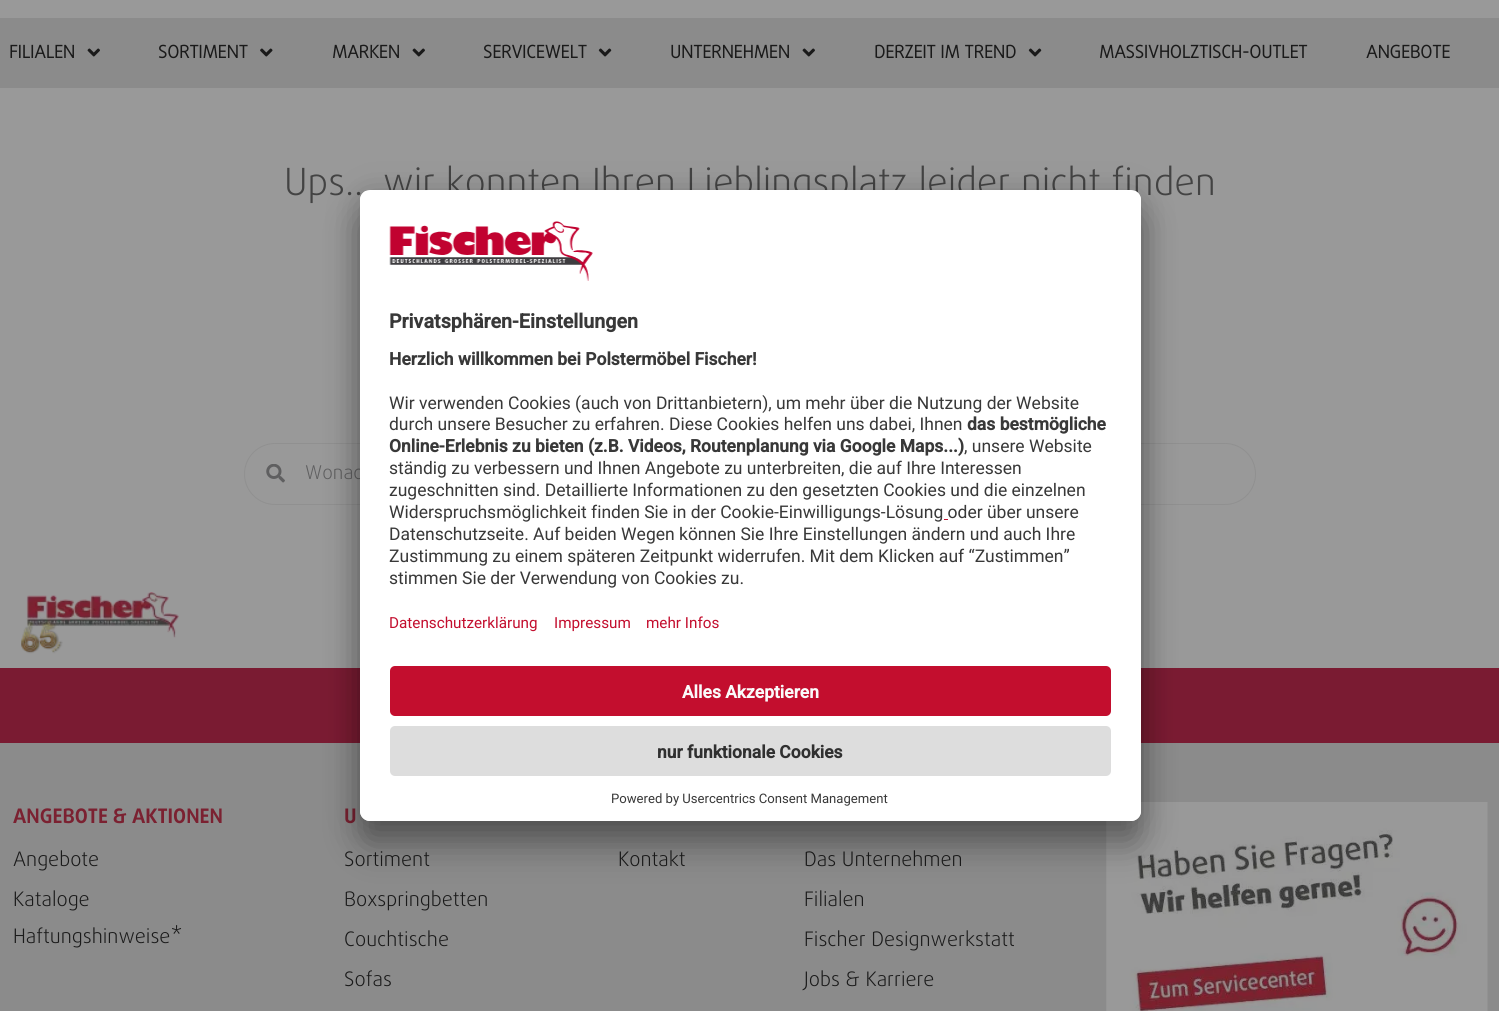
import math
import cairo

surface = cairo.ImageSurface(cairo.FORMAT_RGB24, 1499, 1011)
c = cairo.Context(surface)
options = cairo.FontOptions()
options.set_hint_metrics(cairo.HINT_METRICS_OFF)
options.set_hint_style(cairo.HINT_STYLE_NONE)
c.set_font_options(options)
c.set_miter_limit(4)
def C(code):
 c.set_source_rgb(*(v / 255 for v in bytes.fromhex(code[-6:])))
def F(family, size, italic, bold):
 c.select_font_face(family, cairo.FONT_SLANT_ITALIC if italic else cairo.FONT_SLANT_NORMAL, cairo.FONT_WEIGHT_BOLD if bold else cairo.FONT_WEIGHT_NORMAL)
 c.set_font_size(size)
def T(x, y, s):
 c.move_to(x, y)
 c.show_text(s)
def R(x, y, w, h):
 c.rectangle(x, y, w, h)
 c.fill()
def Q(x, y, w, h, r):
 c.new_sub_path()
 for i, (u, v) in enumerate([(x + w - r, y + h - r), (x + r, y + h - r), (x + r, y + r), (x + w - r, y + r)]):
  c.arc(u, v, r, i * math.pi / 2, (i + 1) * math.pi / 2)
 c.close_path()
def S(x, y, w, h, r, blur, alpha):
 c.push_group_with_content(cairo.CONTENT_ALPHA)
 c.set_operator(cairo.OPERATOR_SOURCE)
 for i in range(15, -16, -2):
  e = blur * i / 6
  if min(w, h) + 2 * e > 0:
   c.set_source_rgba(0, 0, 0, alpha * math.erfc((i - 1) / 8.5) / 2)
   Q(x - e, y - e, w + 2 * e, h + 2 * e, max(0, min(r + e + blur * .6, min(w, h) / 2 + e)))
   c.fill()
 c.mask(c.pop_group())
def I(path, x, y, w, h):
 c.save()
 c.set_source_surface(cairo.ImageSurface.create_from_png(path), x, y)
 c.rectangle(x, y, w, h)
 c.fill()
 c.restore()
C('999999')
c.paint()
C('8b8b8b')
R(0,18,1499,70)
F('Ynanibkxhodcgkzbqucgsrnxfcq',17.5,0,1)
C('1a1a1a')
T(9,58,'FILIALEN')
I('1.png',87,48,13,9)
T(158,58,'SORTIMENT')
I('2.png',260,48,13,9)
T(332,58,'MARKEN')
I('1.png',412,48,13,9)
T(483,58,'SERVICEWELT')
I('3.png',598,48,14,9)
T(670,58,'UNTERNEHMEN')
I('1.png',802,48,13,9)
T(874,58,'DERZEIT IM TREND')
I('3.png',1028,48,14,9)
T(1099,58,'MASSIVHOLZTISCH-OUTLET')
T(1366,58,'ANGEBOTE')
F('Ynanibkxhodcgkzbqucgsrnxfcq Light',37.5,0,0)
C('434343')
T(284,195,'Ups... wir konnten Ihren Lieblingsplatz leider nicht finden')
Q(244.5,443.5,1011,61,30.5)
C('909090')
c.set_line_width(1)
c.stroke()
I('4.png',266,464,19,19)
F('Ynanibkxhodcgkzbqucgsrnxfcq Light',19,0,0)
C('5f5f60')
T(305,479,'Wonac')
I('5.png',21,592,158,62)
C('7a1b32')
R(0,668,1499,75)
C('8b8b8b')
R(0,743,1499,268)
F('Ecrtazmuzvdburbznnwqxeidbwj',20,0,1)
C('7b2131')
T(13,823,'ANGEBOTE & AKTIONEN')
F('Ynanibkxhodcgkzbqucgsrnxfcq Light',20,0,0)
C('1a1a1a')
T(13,866,'Angebote')
T(13,906,'Kataloge')
T(13,943,'Haftungshinweise*')
F('Ecrtazmuzvdburbznnwqxeidbwj',20,0,1)
C('7b2131')
T(344,823,'U')
F('Ynanibkxhodcgkzbqucgsrnxfcq Light',20,0,0)
C('1a1a1a')
T(344,866,'Sortiment')
T(344,906,'Boxspringbetten')
T(344,946,'Couchtische')
T(344,986,'Sofas')
T(618,866,'Kontakt')
T(804,866,'Das Unternehmen')
T(804,906,'Filialen')
T(804,946,'Fischer Designwerkstatt')
T(804,986,'Jobs & Karriere')
I('6.png',1106,802,382,209)
C('000000')
S(360,215,781,631,10,17.5,.3)
S(360,196,781,632,10,16,.22)
C('ffffff')
Q(360,190,781,631,10)
c.fill()
c.save()
Q(360,190,781,631,10)
c.clip()
c.new_path()
c.move_to(370,190)
c.line_to(1131,190)
c.curve_to(1136.5,190,1141,194.5,1141,200)
c.line_to(1141,651)
c.line_to(360,651)
c.line_to(360,200)
c.curve_to(360,194.5,364.5,190,370,190)
c.close_path()
c.clip()
R(360,191,781,460)
c.restore()
I('7.png',389,221,204,60)
F('Roboto',19.75,0,1)
C('383838')
T(389,328,'Privatsphären-Einstellungen')
F('Roboto',17.5,0,1)
T(389,365,'Herzlich willkommen bei Polstermöbel Fischer!')
F('Roboto',17.5,0,0)
T(389,409,'Wir verwenden Cookies (auch von Drittanbietern), um mehr über die Nutzung der Website')
T(389,430,'durch unsere Besucher zu erfahren. Diese Cookies helfen uns dabei, Ihnen')
F('Roboto',17.5,0,1)
T(967,430,'das bestmögliche')
T(389,452,'Online-Erlebnis zu bieten (z.B. Videos, Routenplanung via Google Maps...)')
F('Roboto',17.5,0,0)
T(964,452,', unsere Website')
T(389,474,'ständig zu verbessern und Ihnen Angebote zu unterbreiten, die auf Ihre Interessen')
T(389,496,'zugeschnitten sind. Detaillierte Informationen zu den gesetzten Cookies und die einzelnen')
T(389,518,'Widerspruchsmöglichkeit finden Sie in der Cookie-Einwilligungs-Lösung oder über unsere')
C('c30e2e')
R(944,519,4,1)
C('383838')
T(389,540,'Datenschutzseite. Auf beiden Wegen können Sie Ihre Einstellungen ändern und auch Ihre')
T(389,562,'Zustimmung zu einem späteren Zeitpunkt widerrufen. Mit dem Klicken auf “Zustimmen”')
T(389,584,'stimmen Sie der Verwendung von Cookies zu.')
F('Roboto',15.25,0,0)
C('c30e2e')
T(389,628,'Datenschutzerklärung')
T(554,628,'Impressum')
T(646,628,'mehr Infos')
C('ffffff')
c.new_path()
c.move_to(360,651)
c.line_to(1141,651)
c.line_to(1141,811)
c.curve_to(1141,816.5,1136.5,821,1131,821)
c.line_to(370,821)
c.curve_to(364.5,821,360,816.5,360,811)
c.close_path()
c.fill()
C('c30e2e')
Q(390,666,721,50,5)
c.fill()
F('Roboto',17.5,0,1)
C('fafafa')
T(682,698,'Alles Akzeptieren')
C('dddddd')
Q(390,726,721,50,5)
c.fill()
C('303030')
T(657,758,'nur funktionale Cookies')
F('Roboto',13.1,0,0)
C('383838')
T(611,803,'Powered by Usercentrics Consent Management')
surface.write_to_png('o.png')
